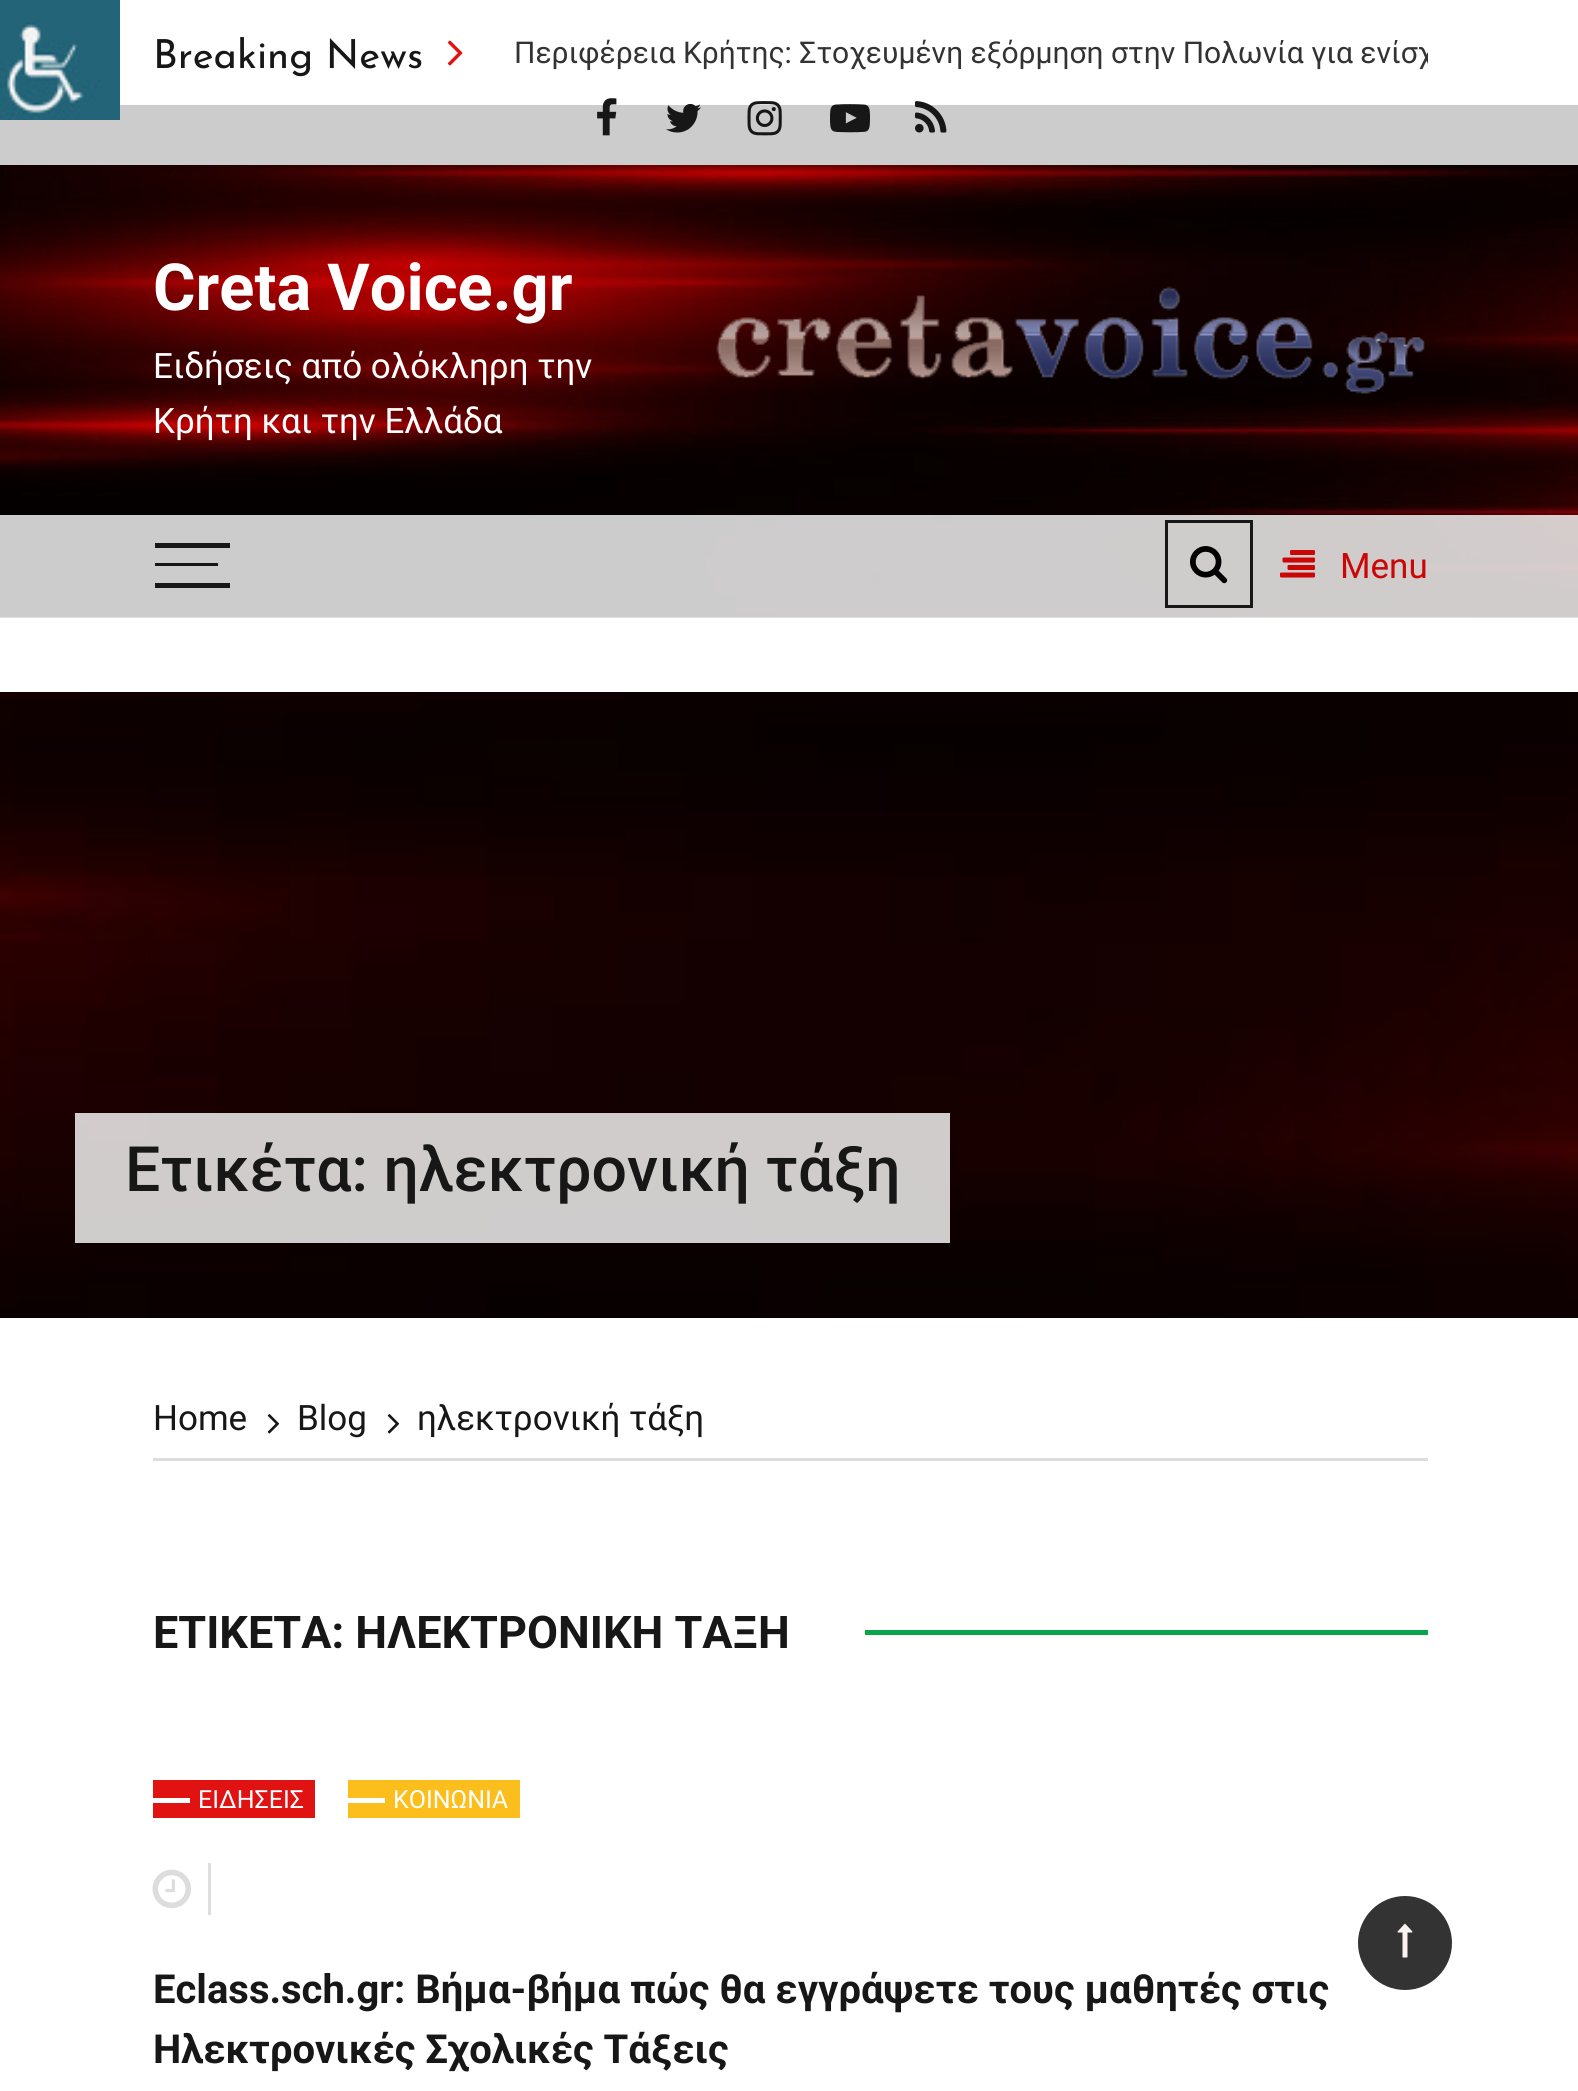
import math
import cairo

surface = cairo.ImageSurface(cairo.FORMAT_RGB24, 1578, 2091)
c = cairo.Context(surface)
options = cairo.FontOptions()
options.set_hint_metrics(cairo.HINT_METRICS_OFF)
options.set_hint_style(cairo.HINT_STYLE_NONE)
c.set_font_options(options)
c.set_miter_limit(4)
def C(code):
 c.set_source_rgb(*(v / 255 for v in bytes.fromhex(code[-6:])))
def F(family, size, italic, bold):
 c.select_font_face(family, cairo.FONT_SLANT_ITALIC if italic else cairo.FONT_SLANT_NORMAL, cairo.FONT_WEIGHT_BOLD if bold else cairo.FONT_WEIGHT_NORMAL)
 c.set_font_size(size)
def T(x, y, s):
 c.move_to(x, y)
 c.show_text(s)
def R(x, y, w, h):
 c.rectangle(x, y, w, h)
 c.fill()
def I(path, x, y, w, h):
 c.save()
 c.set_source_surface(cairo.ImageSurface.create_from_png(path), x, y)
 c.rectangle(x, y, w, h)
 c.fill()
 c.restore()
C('ffffff')
c.paint()
I('2.png',0,165,1578,453)
c.set_source_rgba(0,0,0,0.2)
R(0,105,1578,513)
I('1.png',0,0,120,120)
F('Josefin Sans',40,0,0)
C('171717')
T(153,68,'Breaking News')
I('3.png',447,40,16,26)
c.save()
c.rectangle(490,33,938,57)
c.clip()
F('Roboto',30,0,0)
C('333333')
T(514,63,'Περιφέρεια Κρήτης: Στοχευμένη εξόρμηση στην Πολωνία για ενίσχ')
c.restore()
I('4.png',597,98,20,38)
I('5.png',666,103,35,30)
I('6.png',747,101,35,35)
I('7.png',830,104,40,29)
I('8.png',915,101,32,32)
F('Roboto',65,0,1)
C('ffffff')
T(153,310,'Creta Voice.gr')
F('Roboto',35,0,0)
T(153,378,'Ειδήσεις από ολόκληρη την')
T(153,433,'Κρήτη και την Ελλάδα')
I('9.png',716,286,709,108)
c.set_source_rgba(1,1,1,0.8)
R(0,515,1578,103)
C('171717')
R(155,583,75,5)
R(155,543,75,5)
R(155,563,63,3)
c.rectangle(1166.5,521.5,85,85)
c.set_line_width(3)
c.stroke()
I('10.png',1190,546,38,38)
I('11.png',1280,550,35,28)
C('ca0606')
T(1340,578,'Menu')
I('12.png',0,692,1578,626)
c.set_source_rgba(1,1,1,0.8)
R(75,1113,875,130)
F('Roboto Medium',62.5,0,0)
C('171717')
T(125,1191,'Ετικέτα: ηλεκτρονική τάξη')
C('dddddd')
R(153,1458,1275,3)
F('Roboto',35,0,0)
C('171717')
T(153,1430,'Home')
I('13.png',267,1414,13,20)
T(297,1430,'Blog')
I('13.png',387,1414,13,20)
T(417,1430,'ηλεκτρονική τάξη')
F('Roboto',45,0,1)
T(153,1648,'ΕΤΙΚΕΤΑ: ΗΛΕΚΤΡΟΝΙΚΗ ΤΑΞΗ')
C('08a54a')
R(865,1630,563,5)
C('e01212')
R(153,1780,162,38)
C('ffffff')
R(153,1798,37,5)
F('Roboto',25,0,0)
T(198,1808,'ΕΙΔΗΣΕΙΣ')
C('fbbe1c')
R(348,1780,172,38)
C('ffffff')
R(348,1798,37,5)
T(393,1808,'ΚΟΙΝΩΝΙΑ')
C('dddddd')
R(208,1863,3,52)
I('14.png',152,1869,39,40)
F('Roboto',40,0,1)
C('171717')
T(153,2003,'Eclass.sch.gr: Βήμα-βήμα πώς θα εγγράψετε τους μαθητές στις')
T(153,2063,'Ηλεκτρονικές Σχολικές Τάξεις')
C('333333')
c.new_path()
c.arc(1405,1943,48.5,0,2 * math.pi)
c.fill_preserve()
C('ffffff')
c.stroke()
I('15.png',1397,1923,16,35)
surface.write_to_png('o.png')
